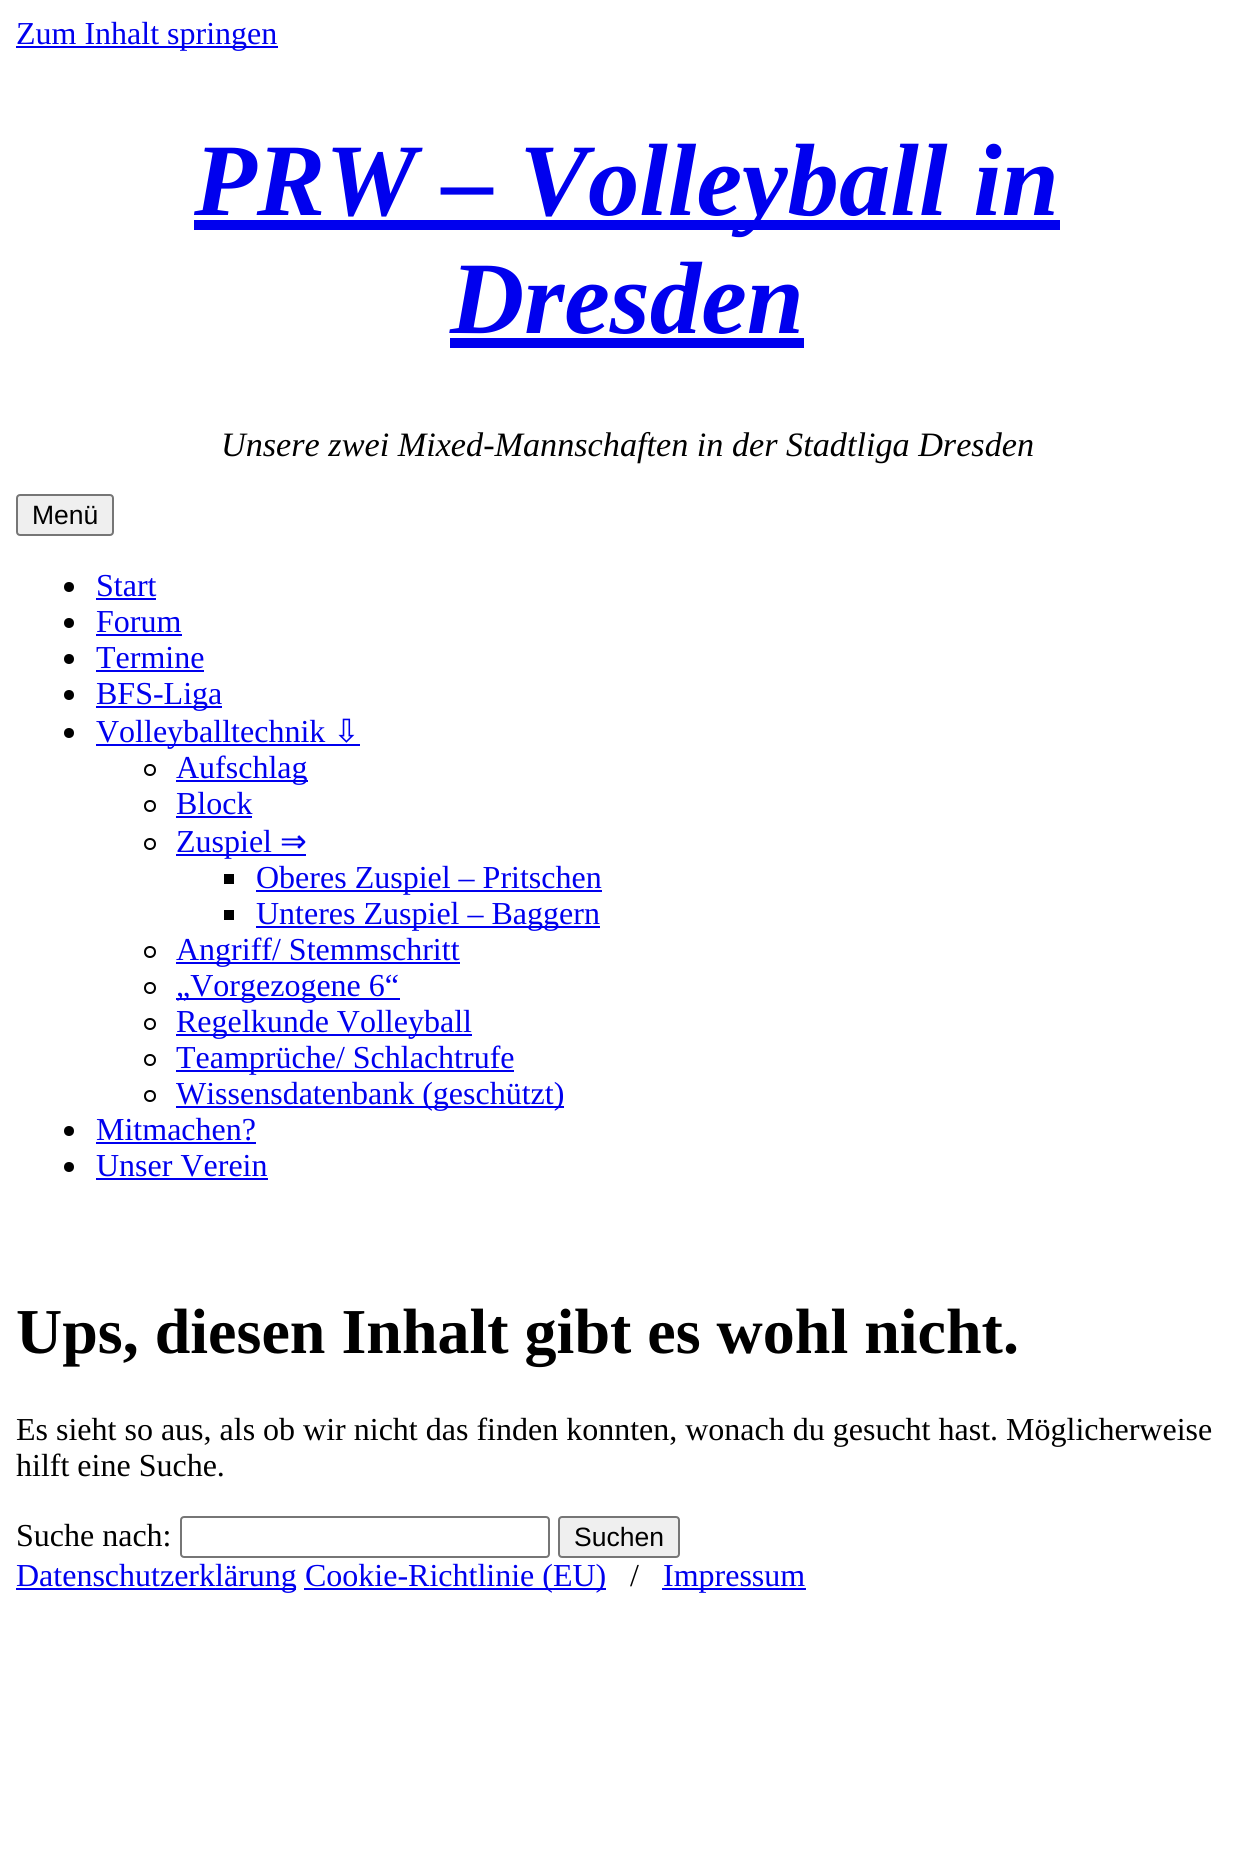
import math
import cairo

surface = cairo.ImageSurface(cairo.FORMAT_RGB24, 1253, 1865)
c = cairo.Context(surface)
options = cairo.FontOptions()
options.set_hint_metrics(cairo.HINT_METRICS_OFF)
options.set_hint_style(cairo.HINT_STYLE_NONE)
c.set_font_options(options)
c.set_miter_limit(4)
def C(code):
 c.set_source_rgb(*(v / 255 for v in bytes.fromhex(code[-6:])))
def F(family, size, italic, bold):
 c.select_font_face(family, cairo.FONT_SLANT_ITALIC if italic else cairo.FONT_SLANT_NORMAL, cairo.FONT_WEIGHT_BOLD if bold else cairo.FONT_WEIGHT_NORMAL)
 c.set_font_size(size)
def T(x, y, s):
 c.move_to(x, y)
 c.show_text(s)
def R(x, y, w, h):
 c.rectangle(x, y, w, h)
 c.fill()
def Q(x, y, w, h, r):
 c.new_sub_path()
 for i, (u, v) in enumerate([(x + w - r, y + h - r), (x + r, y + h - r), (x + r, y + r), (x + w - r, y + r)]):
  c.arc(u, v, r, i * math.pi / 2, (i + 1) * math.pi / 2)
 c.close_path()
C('ffffff')
c.paint()
C('0000ee')
R(16,46,262,2)
F('Liberation Serif',32,0,0)
T(16,44,'Zum Inhalt springen')
R(194,220,866,10)
F('Liberation Serif',102.75,1,1)
T(194,215,'PRW – Volleyball in')
T(450,333,'Dresden')
R(450,338,354,10)
F('Liberation Serif',34.2,1,0)
C('000000')
T(221,456,'Unsere zwei Mixed-Mannschaften in der Stadtliga Dresden')
C('efefef')
Q(17,495,96,40,3)
c.fill_preserve()
C('767676')
c.stroke()
F('Liberation Sans',26.5,0,0)
C('000000')
T(32,524,'Menü')
c.new_path()
c.arc(69,587,5,0,2 * math.pi)
c.fill()
F('Liberation Serif',32,0,0)
C('0000ee')
T(96,596,'Start')
R(96,598,60,2)
C('000000')
c.new_path()
c.arc(69,623,5,0,2 * math.pi)
c.fill()
C('0000ee')
T(96,632,'Forum')
R(96,634,86,2)
C('000000')
c.new_path()
c.arc(69,659,5,0,2 * math.pi)
c.fill()
C('0000ee')
T(96,668,'Termine')
R(96,670,108,2)
C('000000')
c.new_path()
c.arc(69,695,5,0,2 * math.pi)
c.fill()
C('0000ee')
R(96,706,126,2)
T(96,704,'BFS-Liga')
C('000000')
c.new_path()
c.arc(69,733,5,0,2 * math.pi)
c.fill()
C('0000ee')
R(96,744,264,2)
T(96,742,'Volleyballtechnik')
F('DejaVu Sans',32,0,0)
T(333,742,'⇩')
c.new_path()
c.arc(150,770,5,0,2 * math.pi)
C('000000')
c.stroke()
C('0000ee')
R(176,780,132,2)
F('Liberation Serif',32,0,0)
T(176,778,'Aufschlag')
c.new_path()
c.arc(150,806,5,0,2 * math.pi)
C('000000')
c.stroke()
C('0000ee')
T(176,814,'Block')
R(176,816,76,2)
c.new_path()
c.arc(150,844,5,0,2 * math.pi)
C('000000')
c.stroke()
C('0000ee')
R(176,854,130,2)
T(176,852,'Zuspiel')
F('DejaVu Sans',32,0,0)
T(280,852,'⇒')
C('000000')
R(224,874,10,10)
C('0000ee')
R(256,890,346,2)
F('Liberation Serif',32,0,0)
T(256,888,'Oberes Zuspiel – Pritschen')
C('000000')
R(224,910,10,10)
C('0000ee')
R(256,926,344,2)
T(256,924,'Unteres Zuspiel – Baggern')
c.new_path()
c.arc(150,952,5,0,2 * math.pi)
C('000000')
c.stroke()
C('0000ee')
R(176,962,284,2)
T(176,960,'Angriff/ Stemmschritt')
c.new_path()
c.arc(150,988,5,0,2 * math.pi)
C('000000')
c.stroke()
C('0000ee')
R(176,998,224,2)
T(176,996,'„Vorgezogene 6“')
c.new_path()
c.arc(150,1024,5,0,2 * math.pi)
C('000000')
c.stroke()
C('0000ee')
R(176,1034,296,2)
T(176,1032,'Regelkunde Volleyball')
c.new_path()
c.arc(150,1060,5,0,2 * math.pi)
C('000000')
c.stroke()
C('0000ee')
R(176,1070,338,2)
T(176,1068,'Teamprüche/ Schlachtrufe')
c.new_path()
c.arc(150,1096,5,0,2 * math.pi)
C('000000')
c.stroke()
C('0000ee')
R(176,1106,388,2)
T(176,1104,'Wissensdatenbank (geschützt)')
C('000000')
c.new_path()
c.arc(69,1131,5,0,2 * math.pi)
c.fill()
C('0000ee')
T(96,1140,'Mitmachen?')
R(96,1142,160,2)
C('000000')
c.new_path()
c.arc(69,1167,5,0,2 * math.pi)
c.fill()
C('0000ee')
T(96,1176,'Unser Verein')
R(96,1178,172,2)
F('Liberation Serif',64,0,1)
C('000000')
T(16,1353,'Ups, diesen Inhalt gibt es wohl nicht.')
F('Liberation Serif',32,0,0)
T(16,1440,'Es sieht so aus, als ob wir nicht das finden konnten, wonach du gesucht hast. Möglicherweise')
T(16,1476,'hilft eine Suche.')
T(16,1546,'Suche nach:')
Q(181,1517,368,40,3)
C('767676')
c.stroke()
C('efefef')
Q(559,1517,120,40,3)
c.fill_preserve()
C('767676')
c.stroke()
F('Liberation Sans',26.5,0,0)
C('000000')
T(574,1546,'Suchen')
C('0000ee')
R(16,1588,280,2)
F('Liberation Serif',32,0,0)
T(16,1586,'Datenschutzerklärung')
R(304,1588,302,2)
T(305,1586,'Cookie-Richtlinie (EU)')
C('000000')
T(630,1586,'/')
C('0000ee')
R(662,1588,144,2)
T(663,1586,'Impressum')
surface.write_to_png('o.png')
